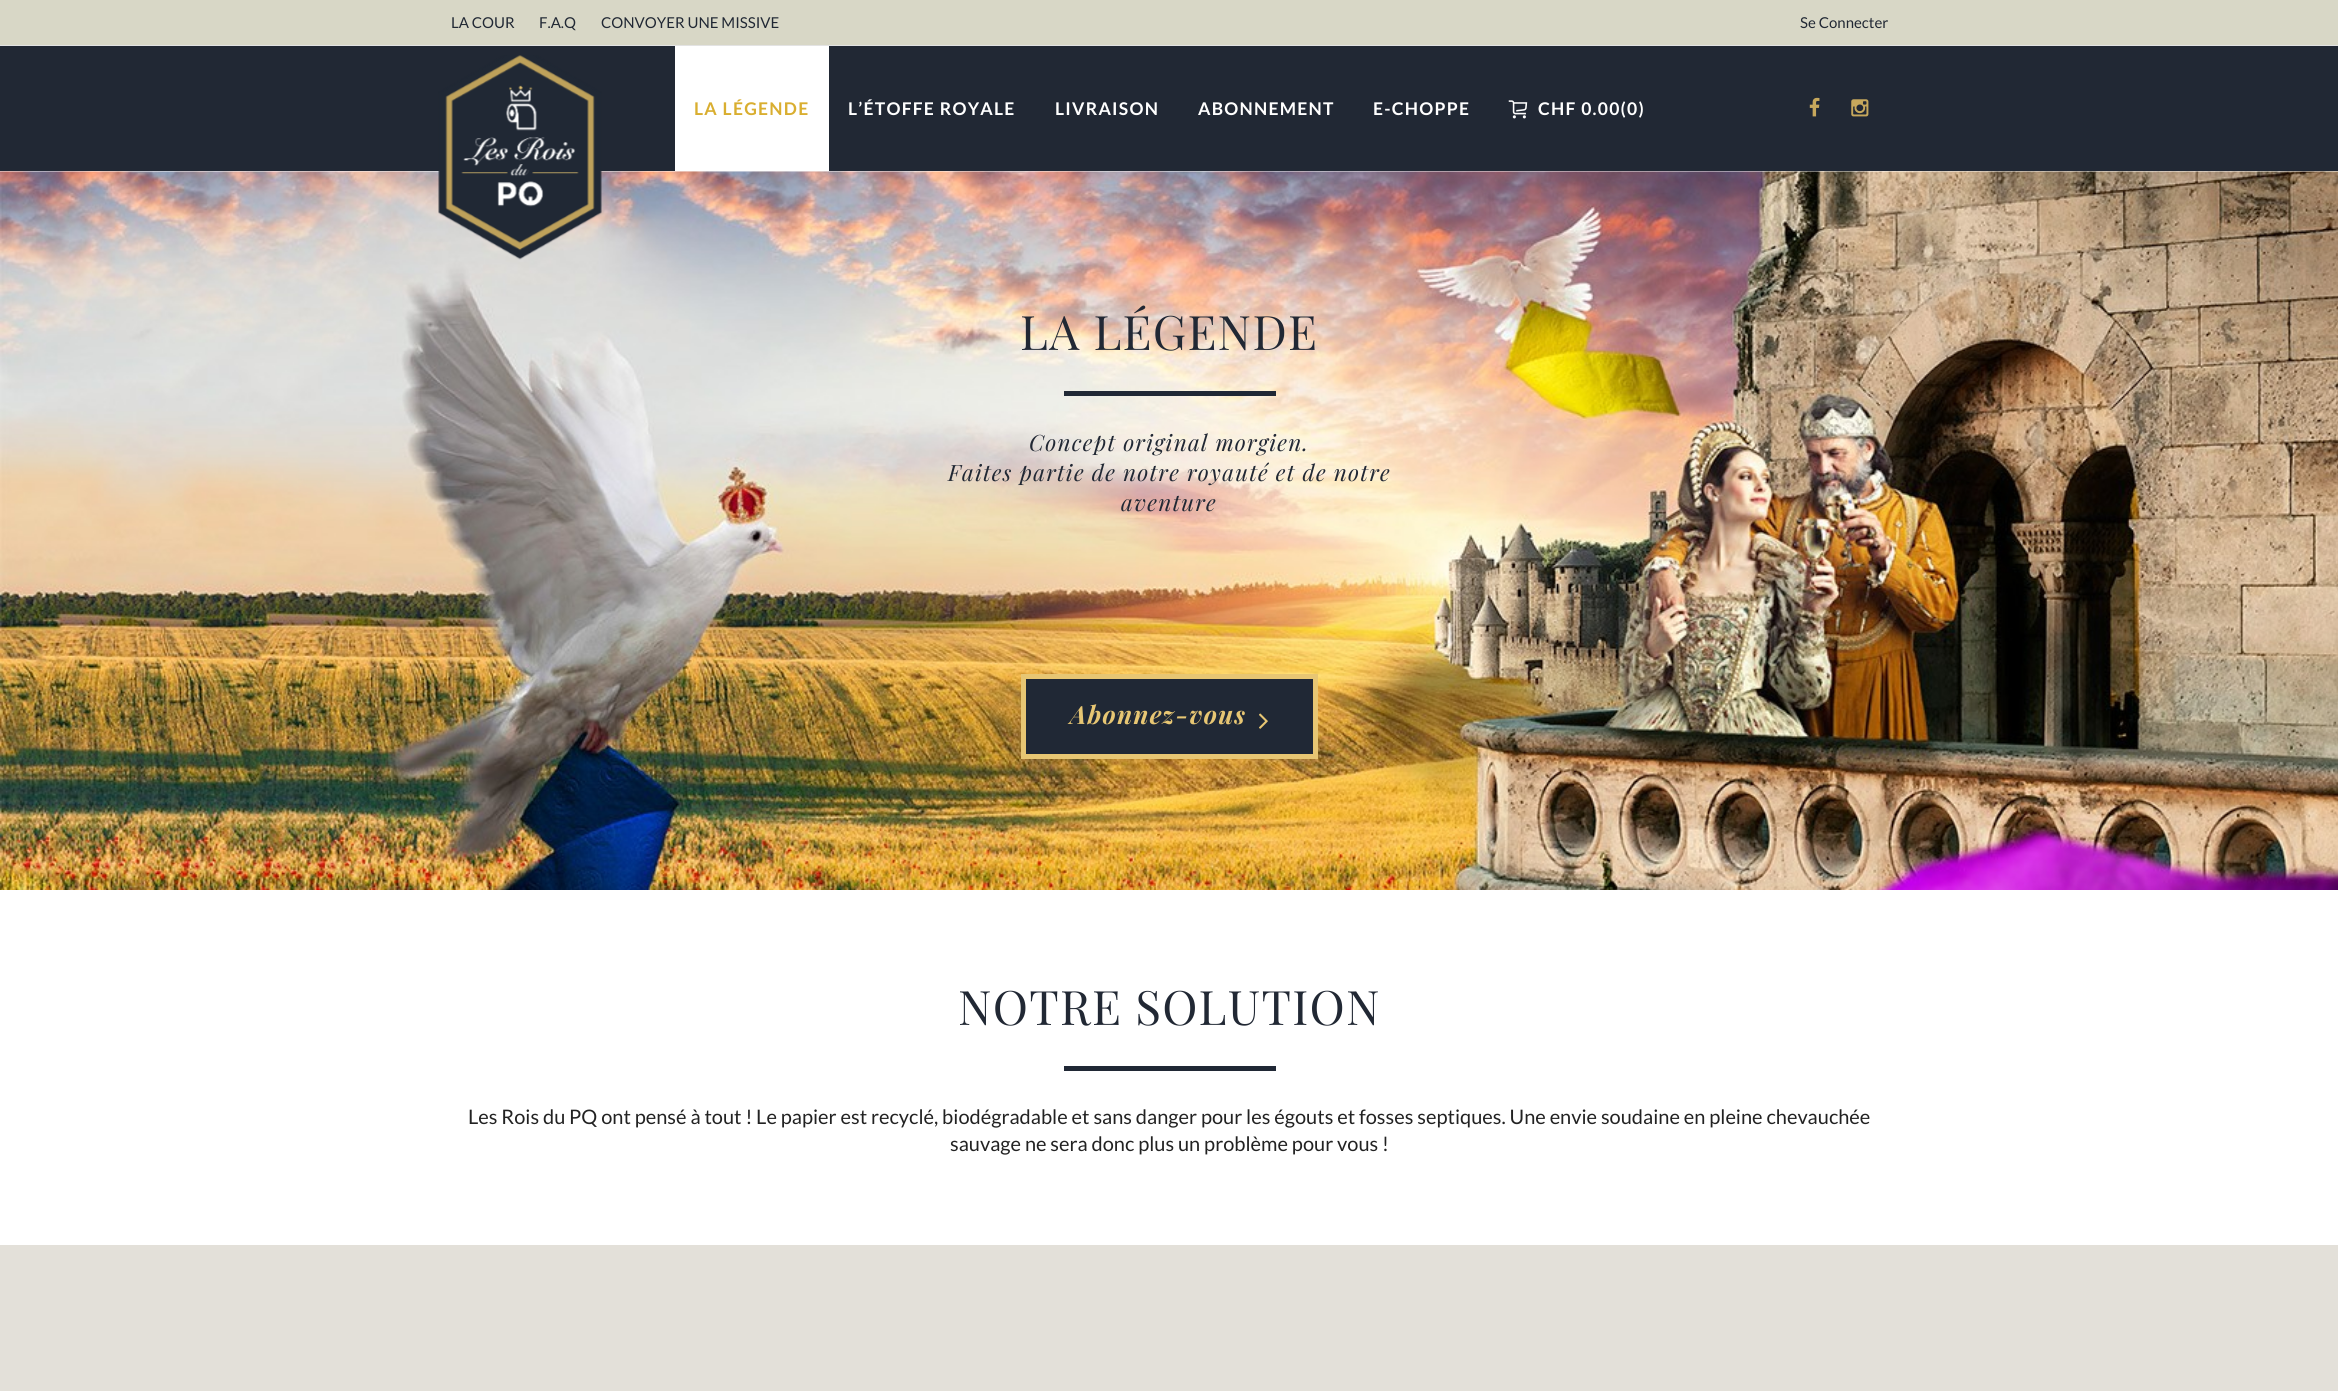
import math
import cairo

surface = cairo.ImageSurface(cairo.FORMAT_RGB24, 2338, 1391)
c = cairo.Context(surface)
options = cairo.FontOptions()
options.set_hint_metrics(cairo.HINT_METRICS_OFF)
options.set_hint_style(cairo.HINT_STYLE_NONE)
c.set_font_options(options)
c.set_miter_limit(4)
def C(code):
 c.set_source_rgb(*(v / 255 for v in bytes.fromhex(code[-6:])))
def F(family, size, italic, bold):
 c.select_font_face(family, cairo.FONT_SLANT_ITALIC if italic else cairo.FONT_SLANT_NORMAL, cairo.FONT_WEIGHT_BOLD if bold else cairo.FONT_WEIGHT_NORMAL)
 c.set_font_size(size)
def T(x, y, s):
 c.move_to(x, y)
 c.show_text(s)
def L(x, y, s, letter, word):
 c.move_to(x, y)
 for ch in s:
  c.show_text(ch)
  c.rel_move_to(letter + word * (ch == ' '), 0)
def R(x, y, w, h):
 c.rectangle(x, y, w, h)
 c.fill()
def I(path, x, y, w, h):
 c.save()
 c.set_source_surface(cairo.ImageSurface.create_from_png(path), x, y)
 c.rectangle(x, y, w, h)
 c.fill()
 c.restore()
C('d8d7c6')
c.paint()
C('e3e3e3')
R(0,45,2338,1)
F('Lato',15,0,0)
C('212834')
T(451,28,'LA COUR')
T(539,28,'F.A.Q')
T(601,28,'CONVOYER UNE MISSIVE')
T(1800,28,'Se Connecter')
R(0,46,2338,125)
C('ffffff')
R(0,171,2338,1074)
I('5.png',0,171,2338,719)
I('1.png',438,55,164,205)
R(675,46,154,125)
F('Lato',17.5,0,1)
C('d9ae30')
L(694,115,'LA LÉGENDE',1.25,0)
C('ffffff')
L(848,115,'L’ÉTOFFE ROYALE',1.25,0)
L(1055,115,'LIVRAISON',1.25,0)
L(1198,115,'ABONNEMENT',1.25,0)
L(1373,115,'E-CHOPPE',1.25,0)
I('2.png',1508,100,20,19)
L(1538,115,'CHF 0.00(0)',1.25,0)
I('3.png',1809,97,11,20)
I('4.png',1851,99,18,18)
F('Playfair Display',47.5,0,0)
C('212834')
L(1020,350,'LA LÉGENDE',1.25,0)
C('202835')
R(1064,391,212,5)
F('Playfair Display',22.5,1,0)
C('212834')
L(1029,451,'Concept original morgien.',1.25,0)
L(948,481,'Faites partie de notre royauté et de notre',1.25,0)
L(1121,511,'aventure',1.25,0)
C('202835')
c.rectangle(1023.5,676.5,292,80)
c.fill_preserve()
C('e7c673')
c.set_line_width(5)
c.stroke()
F('Playfair Display',25,1,1)
L(1070,724,'Abonnez-vous',1.25,0)
I('6.png',1259,713,9,16)
F('Playfair Display',47.5,0,0)
C('212834')
L(958,1025,'NOTRE SOLUTION',1.25,0)
C('202835')
R(1064,1066,212,5)
F('Lato',20,0,0)
C('222222')
T(468,1124,'Les Rois du PQ ont pensé à tout ! Le papier est recyclé, biodégradable et sans danger pour les égouts et fosses septiques. Une envie soudaine en pleine chevauchée')
T(950,1151,'sauvage ne sera donc plus un problème pour vous !')
C('e3e0d9')
R(0,1245,2338,146)
surface.write_to_png('o.png')
